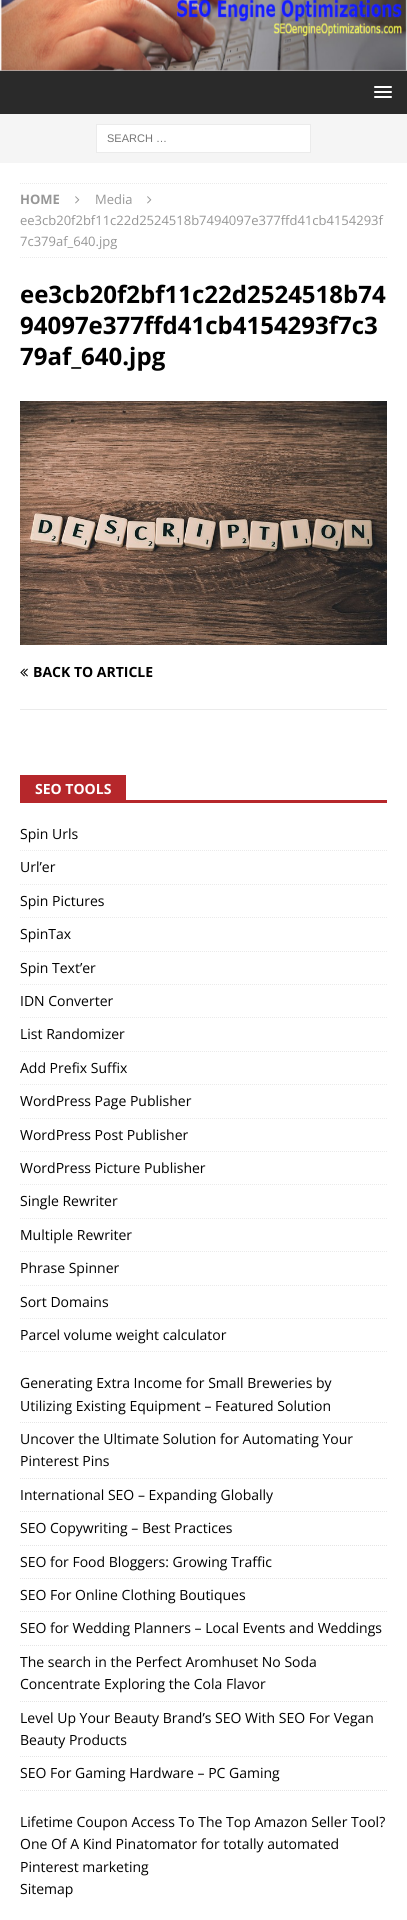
import math
import cairo

surface = cairo.ImageSurface(cairo.FORMAT_RGB24, 407, 1920)
c = cairo.Context(surface)
options = cairo.FontOptions()
options.set_hint_metrics(cairo.HINT_METRICS_OFF)
options.set_hint_style(cairo.HINT_STYLE_NONE)
c.set_font_options(options)
c.set_miter_limit(4)
def C(code):
 c.set_source_rgb(*(v / 255 for v in bytes.fromhex(code[-6:])))
def F(family, size, italic, bold):
 c.select_font_face(family, cairo.FONT_SLANT_ITALIC if italic else cairo.FONT_SLANT_NORMAL, cairo.FONT_WEIGHT_BOLD if bold else cairo.FONT_WEIGHT_NORMAL)
 c.set_font_size(size)
def T(x, y, s):
 c.move_to(x, y)
 c.show_text(s)
def R(x, y, w, h):
 c.rectangle(x, y, w, h)
 c.fill()
def Q(x, y, w, h, r):
 c.new_sub_path()
 for i, (u, v) in enumerate([(x + w - r, y + h - r), (x + r, y + h - r), (x + r, y + r), (x + w - r, y + r)]):
  c.arc(u, v, r, i * math.pi / 2, (i + 1) * math.pi / 2)
 c.close_path()
def I(path, x, y, w, h):
 c.save()
 c.set_source_surface(cairo.ImageSurface.create_from_png(path), x, y)
 c.rectangle(x, y, w, h)
 c.fill()
 c.restore()
C('ffffff')
c.paint()
I('1.png',0,0,407,71)
I('2.png',0,0,407,71)
C('2a2a2a')
R(0,71,407,43)
C('ffffff')
Q(374,86,18,2,1)
c.fill()
Q(374,91,18,2,1)
c.fill()
Q(374,96,18,2,1)
c.fill()
C('f5f5f5')
R(0,114,407,49)
C('ffffff')
c.rectangle(96.5,124.5,214,28)
c.fill_preserve()
C('ebebeb')
c.set_line_width(1)
c.stroke()
F('Liberation Sans',11,0,0)
C('757575')
T(107,142,'SEARCH …')
c.new_path()
c.move_to(20,183.5)
c.line_to(387,183.5)
C('ebebeb')
c.set_dash([1,1])
c.stroke()
c.new_path()
c.move_to(20,257.5)
c.line_to(387,257.5)
c.stroke()
F('Open Sans',13,0,1)
C('979797')
T(20,204,'HOME')
I('3.png',75,196,5,8)
F('Open Sans',13,0,0)
T(95,204,'Media')
I('3.png',147,196,5,8)
T(20,225,'ee3cb20f2bf11c22d2524518b7494097e377ffd41cb4154293f')
T(20,246,'7c379af_640.jpg')
F('Open Sans',24,0,1)
C('000000')
T(20,303,'ee3cb20f2bf11c22d2524518b74')
T(20,334,'94097e377ffd41cb4154293f7c3')
T(20,365,'79af_640.jpg')
I('4.png',20,401,367,244)
C('ebebeb')
R(20,709,367,1)
I('5.png',20,668,8,9)
F('Open Sans',14,0,1)
C('000000')
T(33,677,'BACK TO ARTICLE')
C('b6272b')
R(20,800,367,3)
R(20,775,106,25)
C('ffffff')
T(35,794,'SEO TOOLS')
c.new_path()
c.move_to(20,850.5)
c.line_to(387,850.5)
C('ebebeb')
c.stroke()
F('Open Sans',14,0,0)
C('000000')
T(20,839,'Spin Urls')
c.new_path()
c.move_to(20,884.5)
c.line_to(387,884.5)
C('ebebeb')
c.stroke()
C('000000')
T(20,872,'Url’er')
c.new_path()
c.move_to(20,917.5)
c.line_to(387,917.5)
C('ebebeb')
c.stroke()
C('000000')
T(20,906,'Spin Pictures')
c.new_path()
c.move_to(20,951.5)
c.line_to(387,951.5)
C('ebebeb')
c.stroke()
C('000000')
T(20,939,'SpinTax')
c.new_path()
c.move_to(20,984.5)
c.line_to(387,984.5)
C('ebebeb')
c.stroke()
C('000000')
T(20,973,'Spin Text’er')
c.new_path()
c.move_to(20,1017.5)
c.line_to(387,1017.5)
C('ebebeb')
c.stroke()
C('000000')
T(20,1006,'IDN Converter')
c.new_path()
c.move_to(20,1051.5)
c.line_to(387,1051.5)
C('ebebeb')
c.stroke()
C('000000')
T(20,1039,'List Randomizer')
c.new_path()
c.move_to(20,1084.5)
c.line_to(387,1084.5)
C('ebebeb')
c.stroke()
C('000000')
T(20,1073,'Add Prefix Suffix')
c.new_path()
c.move_to(20,1118.5)
c.line_to(387,1118.5)
C('ebebeb')
c.stroke()
C('000000')
T(20,1106,'WordPress Page Publisher')
c.new_path()
c.move_to(20,1151.5)
c.line_to(387,1151.5)
C('ebebeb')
c.stroke()
C('000000')
T(20,1140,'WordPress Post Publisher')
c.new_path()
c.move_to(20,1184.5)
c.line_to(387,1184.5)
C('ebebeb')
c.stroke()
C('000000')
T(20,1173,'WordPress Picture Publisher')
c.new_path()
c.move_to(20,1218.5)
c.line_to(387,1218.5)
C('ebebeb')
c.stroke()
C('000000')
T(20,1206,'Single Rewriter')
c.new_path()
c.move_to(20,1251.5)
c.line_to(387,1251.5)
C('ebebeb')
c.stroke()
C('000000')
T(20,1240,'Multiple Rewriter')
c.new_path()
c.move_to(20,1285.5)
c.line_to(387,1285.5)
C('ebebeb')
c.stroke()
C('000000')
T(20,1273,'Phrase Spinner')
c.new_path()
c.move_to(20,1318.5)
c.line_to(387,1318.5)
C('ebebeb')
c.stroke()
C('000000')
T(20,1307,'Sort Domains')
c.new_path()
c.move_to(20,1351.5)
c.line_to(387,1351.5)
C('ebebeb')
c.stroke()
C('000000')
T(20,1340,'Parcel volume weight calculator')
c.new_path()
c.move_to(20,1422.5)
c.line_to(387,1422.5)
C('e5e5e5')
c.stroke()
C('000000')
T(20,1388,'Generating Extra Income for Small Breweries by')
T(20,1411,'Utilizing Existing Equipment – Featured Solution')
c.new_path()
c.move_to(20,1478.5)
c.line_to(387,1478.5)
C('e5e5e5')
c.stroke()
C('000000')
T(20,1444,'Uncover the Ultimate Solution for Automating Your')
T(20,1466,'Pinterest Pins')
c.new_path()
c.move_to(20,1511.5)
c.line_to(387,1511.5)
C('e5e5e5')
c.stroke()
C('000000')
T(20,1500,'International SEO – Expanding Globally')
c.new_path()
c.move_to(20,1545.5)
c.line_to(387,1545.5)
C('e5e5e5')
c.stroke()
C('000000')
T(20,1533,'SEO Copywriting – Best Practices')
c.new_path()
c.move_to(20,1578.5)
c.line_to(387,1578.5)
C('e5e5e5')
c.stroke()
C('000000')
T(20,1567,'SEO for Food Bloggers: Growing Traffic')
c.new_path()
c.move_to(20,1611.5)
c.line_to(387,1611.5)
C('e5e5e5')
c.stroke()
C('000000')
T(20,1600,'SEO For Online Clothing Boutiques')
c.new_path()
c.move_to(20,1645.5)
c.line_to(387,1645.5)
C('e5e5e5')
c.stroke()
C('000000')
T(20,1633,'SEO for Wedding Planners – Local Events and Weddings')
c.new_path()
c.move_to(20,1701.5)
c.line_to(387,1701.5)
C('e5e5e5')
c.stroke()
C('000000')
T(20,1667,'The search in the Perfect Aromhuset No Soda')
T(20,1689,'Concentrate Exploring the Cola Flavor')
c.new_path()
c.move_to(20,1756.5)
c.line_to(387,1756.5)
C('e5e5e5')
c.stroke()
C('000000')
T(20,1723,'Level Up Your Beauty Brand’s SEO With SEO For Vegan')
T(20,1745,'Beauty Products')
c.new_path()
c.move_to(20,1790.5)
c.line_to(387,1790.5)
C('e5e5e5')
c.stroke()
C('000000')
T(20,1778,'SEO For Gaming Hardware – PC Gaming')
T(20,1827,'Lifetime Coupon Access To The Top Amazon Seller Tool?')
T(20,1849,'One Of A Kind Pinatomator for totally automated')
T(20,1872,'Pinterest marketing')
T(20,1894,'Sitemap')
surface.write_to_png('o.png')
